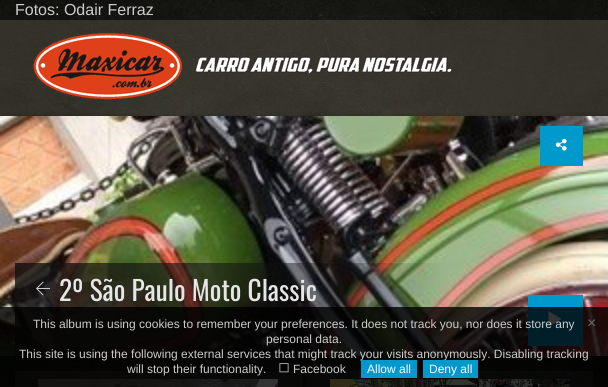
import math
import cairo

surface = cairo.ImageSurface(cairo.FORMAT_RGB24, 608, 387)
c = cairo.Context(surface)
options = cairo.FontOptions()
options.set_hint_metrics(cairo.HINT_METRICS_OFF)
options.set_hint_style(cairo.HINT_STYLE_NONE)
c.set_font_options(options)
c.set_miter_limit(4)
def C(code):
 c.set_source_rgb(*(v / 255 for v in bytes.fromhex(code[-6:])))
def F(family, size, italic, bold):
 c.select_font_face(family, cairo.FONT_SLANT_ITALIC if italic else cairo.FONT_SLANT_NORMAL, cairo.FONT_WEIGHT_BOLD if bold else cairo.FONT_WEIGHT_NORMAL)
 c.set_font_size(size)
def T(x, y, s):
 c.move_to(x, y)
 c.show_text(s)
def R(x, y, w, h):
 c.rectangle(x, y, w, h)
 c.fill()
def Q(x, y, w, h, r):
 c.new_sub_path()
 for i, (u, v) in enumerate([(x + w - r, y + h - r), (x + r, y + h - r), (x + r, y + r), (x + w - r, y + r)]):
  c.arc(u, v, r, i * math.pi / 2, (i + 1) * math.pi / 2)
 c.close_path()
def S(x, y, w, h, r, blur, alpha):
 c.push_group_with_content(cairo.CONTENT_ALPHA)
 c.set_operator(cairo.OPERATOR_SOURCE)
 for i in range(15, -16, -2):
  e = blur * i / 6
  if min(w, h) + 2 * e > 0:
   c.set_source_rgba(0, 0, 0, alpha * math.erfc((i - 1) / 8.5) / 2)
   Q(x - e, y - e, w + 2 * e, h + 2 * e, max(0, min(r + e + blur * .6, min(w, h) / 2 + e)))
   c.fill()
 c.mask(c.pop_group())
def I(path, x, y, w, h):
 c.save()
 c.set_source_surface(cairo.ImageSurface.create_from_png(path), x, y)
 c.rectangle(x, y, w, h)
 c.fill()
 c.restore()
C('ffffff')
c.paint()
I('1.png',0,0,608,387)
F('Liberation Sans',16,0,0)
C('cccccc')
T(15,15,'Fotos: Odair Ferraz')
c.set_source_rgba(0.396,0.373,0.322,0.4)
R(0,20,608,96)
I('2.png',26,29,427,72)
C('000000')
S(1,118,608,240,0,3,.46)
I('3.png',0,116,608,240)
C('0099cc')
R(540,126,43,40)
I('4.png',555,138,12,13)
I('5.png',36,281,14,15)
F('Oswald',27.25,0,0)
C('e6e6e6')
T(59,301,'2º São Paulo Moto Classic')
C('0099cc')
R(528,295,55,51)
C('ffffff')
c.new_path()
c.move_to(561.5,319)
c.line_to(548.5,327)
c.line_to(548.5,311)
c.close_path()
c.fill()
c.set_source_rgba(0.267,0.267,0.267,0.4)
R(15,371,287,16)
I('7.png',38,379,240,8)
R(307,371,286,16)
I('8.png',330,379,240,8)
c.set_source_rgba(0,0,0,0.8)
R(0,307,608,80)
F('Liberation Sans',12,0,0)
C('cccccc')
T(33,328,'This album is using cookies to remember your preferences. It does not track you, nor does it store any')
T(266,343,'personal data.')
F('Liberation Sans',16,0,0)
C('666666')
T(587,328,'×')
F('Liberation Sans',12,0,0)
C('cccccc')
T(19,358,'This site is using the following external services that might track your visits anonymously. Disabling tracking')
T(127,373,'will stop their functionality.')
I('6.png',279,363,10,10)
T(293,373,'Facebook')
C('0099cc')
R(361,360,56,18)
C('ffffff')
T(367,373,'Allow all')
C('0099cc')
R(423,360,55,18)
C('ffffff')
T(429,373,'Deny all')
surface.write_to_png('o.png')
